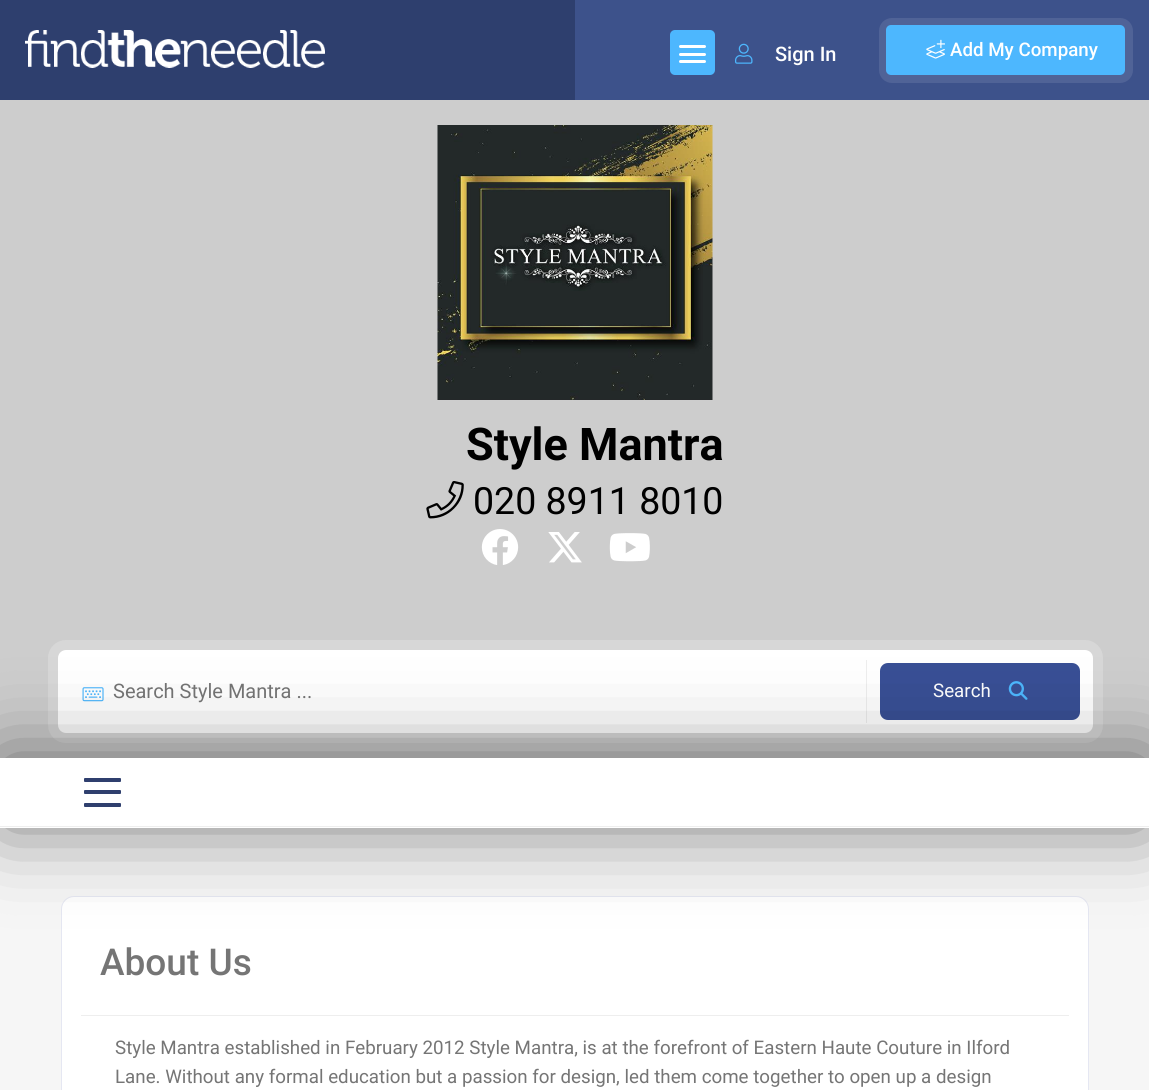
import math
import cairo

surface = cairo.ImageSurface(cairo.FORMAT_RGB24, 1149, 1090)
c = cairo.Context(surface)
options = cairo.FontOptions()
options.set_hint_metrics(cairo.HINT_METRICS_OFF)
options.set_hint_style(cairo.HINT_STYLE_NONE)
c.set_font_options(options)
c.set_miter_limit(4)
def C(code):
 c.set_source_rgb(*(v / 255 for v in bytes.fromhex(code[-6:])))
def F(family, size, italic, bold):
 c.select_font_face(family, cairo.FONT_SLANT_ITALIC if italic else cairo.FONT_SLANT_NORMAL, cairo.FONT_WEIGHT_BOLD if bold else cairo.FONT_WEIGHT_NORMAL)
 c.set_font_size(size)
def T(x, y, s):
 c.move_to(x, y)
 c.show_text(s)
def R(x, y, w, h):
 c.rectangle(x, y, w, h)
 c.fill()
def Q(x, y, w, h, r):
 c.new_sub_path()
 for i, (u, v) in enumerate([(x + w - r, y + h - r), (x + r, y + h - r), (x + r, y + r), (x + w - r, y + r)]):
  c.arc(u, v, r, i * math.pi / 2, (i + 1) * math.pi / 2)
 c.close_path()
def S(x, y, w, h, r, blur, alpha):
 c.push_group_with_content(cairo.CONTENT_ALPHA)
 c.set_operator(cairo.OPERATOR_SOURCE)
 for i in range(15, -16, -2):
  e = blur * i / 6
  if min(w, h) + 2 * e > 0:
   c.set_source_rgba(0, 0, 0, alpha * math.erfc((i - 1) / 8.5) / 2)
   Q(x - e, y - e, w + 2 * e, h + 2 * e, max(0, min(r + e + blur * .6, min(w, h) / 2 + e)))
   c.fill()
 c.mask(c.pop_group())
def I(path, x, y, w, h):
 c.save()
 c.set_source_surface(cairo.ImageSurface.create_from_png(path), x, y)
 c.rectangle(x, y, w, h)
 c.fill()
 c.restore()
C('cdcdcd')
c.paint()
C('2e3f6e')
R(0,0,575,100)
I('1.png',25,30,300,38)
C('3d528b')
R(575,0,574,100)
C('4db7fe')
Q(670,30,45,45,5)
c.fill()
C('ffffff')
Q(679,45,27,3,1.5)
c.fill()
Q(679,53,27,3,1.5)
c.fill()
Q(679,60,27,3,1.5)
c.fill()
I('2.png',735,43,18,21)
F('Roboto Medium',20,0,0)
T(775,61,'Sign In')
Q(883,22,246,57,9)
C('506397')
c.set_line_width(8)
c.stroke()
C('4db7fe')
Q(886,25,239,50,5)
c.fill()
I('3.png',926,39,19,20)
F('Roboto Medium',18.75,0,0)
C('ffffff')
T(950,56,'Add My Company')
I('4.png',437,125,276,275)
F('Roboto',45,0,1)
C('000000')
T(466,460,'Style Mantra')
I('5.png',426,481,38,38)
F('Roboto',37.5,0,0)
T(473,514,'020 8911 8010')
I('6.png',481,529,38,36)
I('7.png',548,532,34,31)
I('8.png',609,533,41,29)
Q(53,645,1045,93,13)
C('d7d7d7')
c.set_line_width(10)
c.stroke()
C('ffffff')
Q(58,650,1035,83,8)
c.fill()
C('eeeeee')
R(866,660,1,63)
I('9.png',82,687,22,15)
F('Roboto',20,0,0)
C('757575')
T(113,698,'Search Style Mantra ...')
C('384f95')
Q(880,663,200,57,8)
c.fill()
F('Roboto',18.75,0,0)
C('ffffff')
T(933,697,'Search')
I('10.png',1008,681,20,19)
C('f6f6f6')
R(0,828,1149,262)
C('ffffff')
Q(61.5,896.5,1027,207,12.5)
c.fill_preserve()
C('e5e7f2')
c.set_line_width(1)
c.stroke()
C('000000')
S(0,758,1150,70,0,40.5,.5)
C('ffffff')
R(0,758,1149,70)
C('eeeeee')
R(0,826,1149,1)
C('2f3f6e')
Q(84,790,37,4,1)
c.fill()
Q(84,778,37,4,1)
c.fill()
Q(84,803,37,4,1)
c.fill()
F('Roboto Medium',37,0,0)
C('757575')
T(100,975,'About Us')
C('eeeeee')
R(81,1015,988,1)
F('Roboto',18.75,0,0)
C('757575')
T(115,1054,'Style Mantra established in February 2012 Style Mantra, is at the forefront of Eastern Haute Couture in Ilford')
T(115,1083,'Lane. Without any formal education but a passion for design, led them come together to open up a design')
surface.write_to_png('o.png')
